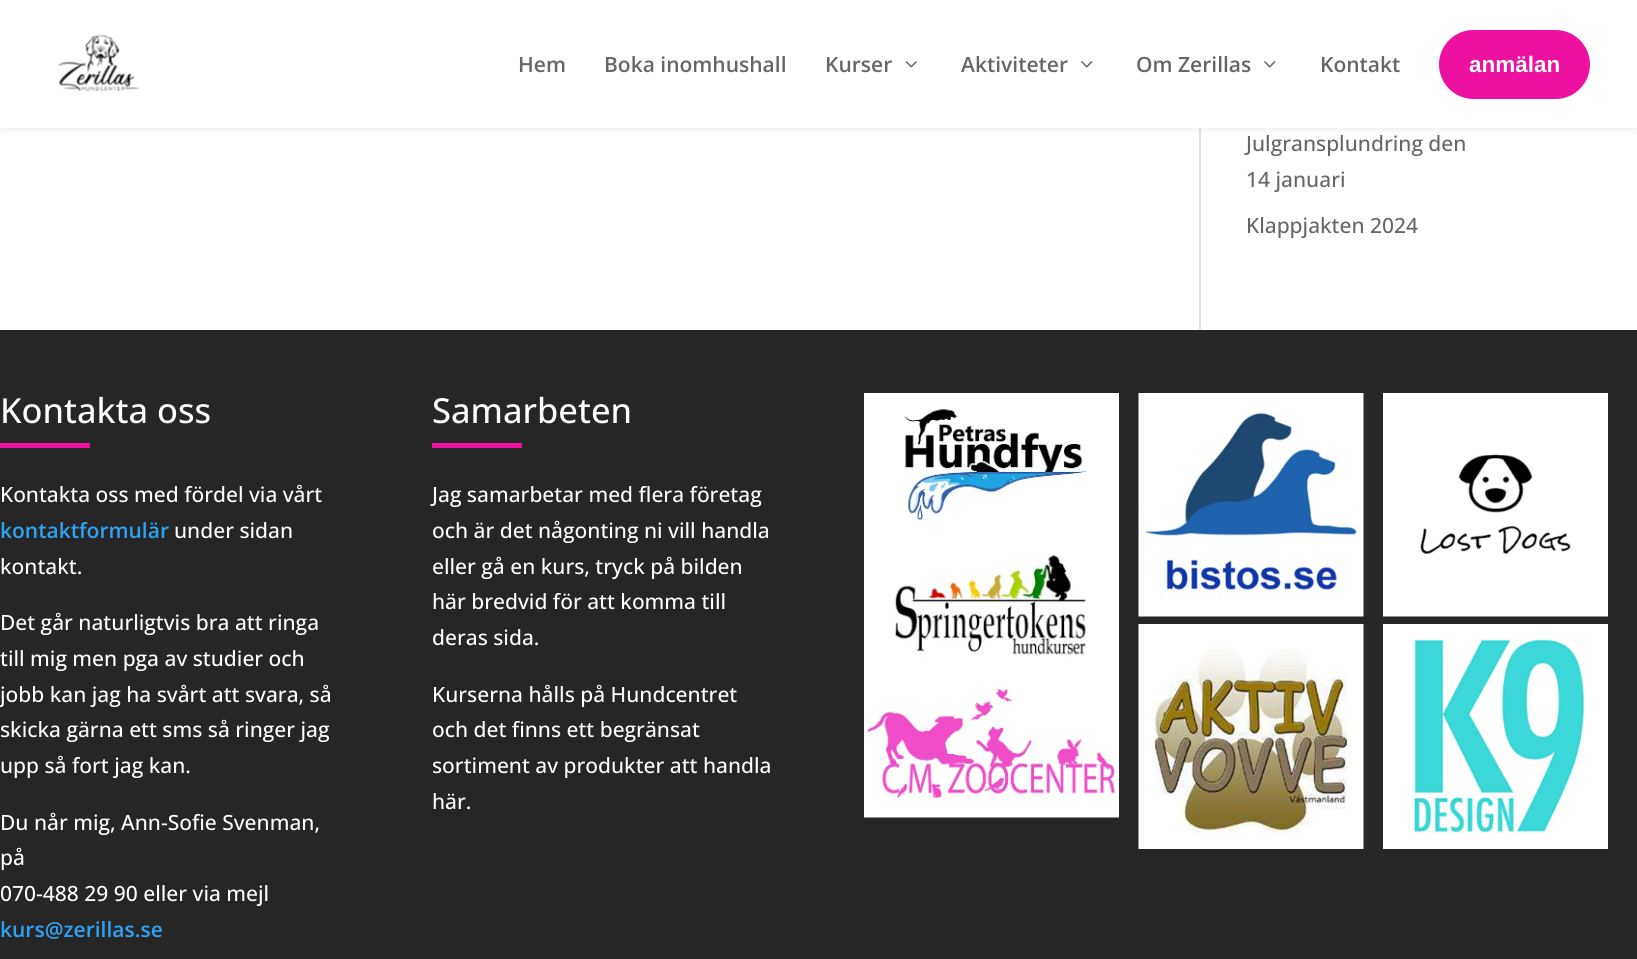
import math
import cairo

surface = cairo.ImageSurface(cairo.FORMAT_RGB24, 1637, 959)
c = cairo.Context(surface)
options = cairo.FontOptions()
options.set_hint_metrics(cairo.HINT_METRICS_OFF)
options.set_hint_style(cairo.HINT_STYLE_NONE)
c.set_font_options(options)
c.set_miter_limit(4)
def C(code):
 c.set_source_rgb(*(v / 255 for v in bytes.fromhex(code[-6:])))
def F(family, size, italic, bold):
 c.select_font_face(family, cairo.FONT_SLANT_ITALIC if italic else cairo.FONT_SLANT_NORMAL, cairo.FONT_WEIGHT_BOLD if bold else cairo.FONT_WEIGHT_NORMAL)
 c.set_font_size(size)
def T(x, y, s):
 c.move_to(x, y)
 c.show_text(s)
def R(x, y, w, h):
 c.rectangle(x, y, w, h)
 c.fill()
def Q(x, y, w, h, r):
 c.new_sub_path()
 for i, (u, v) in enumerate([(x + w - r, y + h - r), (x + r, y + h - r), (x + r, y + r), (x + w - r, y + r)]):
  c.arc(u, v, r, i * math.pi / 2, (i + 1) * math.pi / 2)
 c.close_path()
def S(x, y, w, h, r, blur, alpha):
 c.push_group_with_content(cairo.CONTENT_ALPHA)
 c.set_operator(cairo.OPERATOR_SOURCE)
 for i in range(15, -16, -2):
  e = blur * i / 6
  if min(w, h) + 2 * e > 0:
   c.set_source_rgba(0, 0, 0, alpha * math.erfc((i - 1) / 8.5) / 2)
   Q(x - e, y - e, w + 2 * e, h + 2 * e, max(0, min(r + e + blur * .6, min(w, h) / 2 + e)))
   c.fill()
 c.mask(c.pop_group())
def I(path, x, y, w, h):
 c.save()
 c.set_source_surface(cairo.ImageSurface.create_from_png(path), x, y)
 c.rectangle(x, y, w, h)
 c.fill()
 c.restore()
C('ffffff')
c.paint()
C('e2e2e2')
R(1199,128,2,202)
C('000000')
S(0,0,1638,128,0,5,.1)
C('ffffff')
R(0,0,1637,128)
I('1.png',58,34,82,57)
F('Open Sans SemiBold',21,0,0)
C('666666')
T(518,72,'Hem')
T(604,72,'Boka inomhushall')
T(825,72,'Kurser')
I('2.png',905,61,12,7)
T(961,72,'Aktiviteter')
I('3.png',1081,61,12,7)
T(1136,72,'Om Zerillas')
I('3.png',1264,61,12,7)
T(1320,72,'Kontakt')
C('ed11a1')
Q(1439,30,151,69,34.5)
c.fill()
F('Liberation Sans',22.5,0,1)
C('ffffff')
T(1469,72,'anmälan')
F('Open Sans Medium',21,0,0)
C('666666')
T(1246,151,'Julgransplundring den')
T(1246,187,'14 januari')
T(1246,233,'Klappjakten 2024')
C('262626')
R(0,330,1637,629)
F('Open Sans Medium',34.5,0,0)
C('ffffff')
T(0,423,'Kontakta oss')
C('ed11a1')
R(0,443,90,5)
F('Open Sans Medium',21,0,0)
C('ffffff')
T(0,502,'Kontakta oss med fördel via vårt')
F('Open Sans SemiBold',21,0,0)
C('2ea3f2')
T(0,538,'kontaktformulär')
F('Open Sans Medium',21,0,0)
C('ffffff')
T(174,538,'under sidan')
T(0,574,'kontakt.')
T(0,630,'Det går naturligtvis bra att ringa')
T(0,666,'till mig men pga av studier och')
T(0,702,'jobb kan jag ha svårt att svara, så')
T(0,737,'skicka gärna ett sms så ringer jag')
T(0,773,'upp så fort jag kan.')
T(0,830,'Du når mig, Ann-Sofie Svenman,')
T(0,865,'på')
T(0,901,'070-488 29 90 eller via mejl')
F('Open Sans SemiBold',21,0,0)
C('2ea3f2')
T(0,937,'kurs@zerillas.se')
F('Open Sans Medium',34.5,0,0)
C('ffffff')
T(432,423,'Samarbeten')
C('ed11a1')
R(432,443,90,5)
F('Open Sans Medium',21,0,0)
C('ffffff')
T(432,502,'Jag samarbetar med flera företag')
T(432,538,'och är det någonting ni vill handla')
T(432,574,'eller gå en kurs, tryck på bilden')
T(432,609,'här bredvid för att komma till')
T(432,645,'deras sida.')
T(432,702,'Kurserna hålls på Hundcentret')
T(432,737,'och det finns ett begränsat')
T(432,773,'sortiment av produkter att handla')
T(432,809,'här.')
I('4.png',864,393,255,142)
I('5.png',1138,393,226,224)
I('6.png',1383,393,225,224)
I('7.png',864,535,255,143)
I('8.png',864,678,255,140)
I('9.png',1138,624,226,225)
I('10.png',1383,624,225,225)
surface.write_to_png('o.png')
